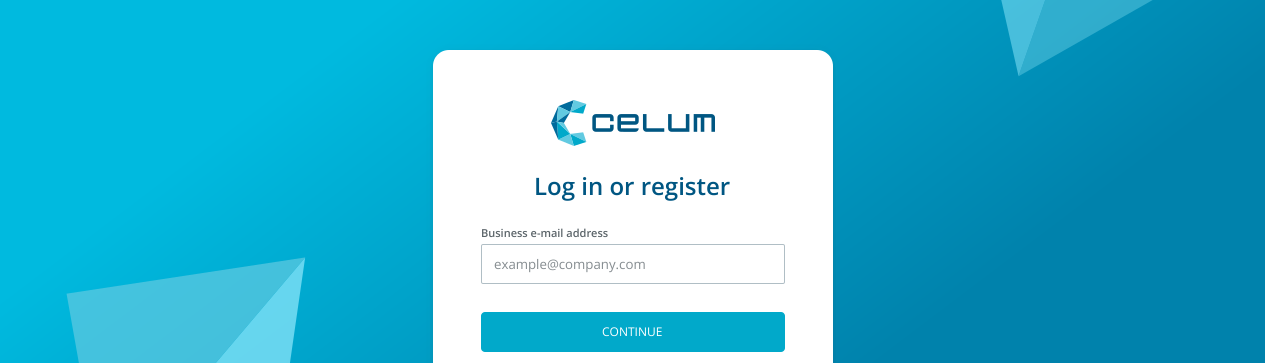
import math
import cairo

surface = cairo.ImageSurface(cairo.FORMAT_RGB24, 1265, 363)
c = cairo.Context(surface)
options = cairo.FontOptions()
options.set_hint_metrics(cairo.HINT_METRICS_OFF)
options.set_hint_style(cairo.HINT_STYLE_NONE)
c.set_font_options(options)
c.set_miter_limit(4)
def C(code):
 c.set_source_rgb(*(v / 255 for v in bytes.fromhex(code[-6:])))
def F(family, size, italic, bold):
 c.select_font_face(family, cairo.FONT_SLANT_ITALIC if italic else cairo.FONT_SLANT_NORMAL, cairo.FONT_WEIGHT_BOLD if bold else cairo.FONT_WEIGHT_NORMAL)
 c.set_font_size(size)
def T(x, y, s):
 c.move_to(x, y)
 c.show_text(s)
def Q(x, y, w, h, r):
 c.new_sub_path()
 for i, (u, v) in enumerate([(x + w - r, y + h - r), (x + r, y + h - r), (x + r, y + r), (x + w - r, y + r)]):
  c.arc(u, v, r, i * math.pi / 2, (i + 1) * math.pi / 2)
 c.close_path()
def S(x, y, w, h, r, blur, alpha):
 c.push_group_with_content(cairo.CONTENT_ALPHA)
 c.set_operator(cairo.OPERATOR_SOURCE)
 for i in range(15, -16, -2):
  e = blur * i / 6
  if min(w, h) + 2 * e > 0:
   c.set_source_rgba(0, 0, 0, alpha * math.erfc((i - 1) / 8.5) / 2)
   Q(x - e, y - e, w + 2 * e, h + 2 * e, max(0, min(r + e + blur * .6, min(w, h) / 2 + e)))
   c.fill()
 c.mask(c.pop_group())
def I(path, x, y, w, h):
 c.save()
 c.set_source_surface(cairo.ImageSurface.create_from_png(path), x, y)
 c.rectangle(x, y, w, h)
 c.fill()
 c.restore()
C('ffffff')
c.paint()
I('1.png',0,0,1265,363)
C('263238')
S(434,53,398,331,15,2,.1)
S(433,51,400,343,16,5,.07)
S(434,53,398,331,15,2,.1)
C('ffffff')
c.new_path()
c.move_to(449,50)
c.line_to(817,50)
c.curve_to(826,50,833,57,833,66)
c.line_to(833,363)
c.line_to(433,363)
c.line_to(433,66)
c.curve_to(433,57,440,50,449,50)
c.close_path()
c.fill()
I('2.png',551,100,164,46)
F('Open Sans SemiBold',24,0,0)
C('005682')
T(534,195,'Log in or register')
F('Open Sans SemiBold',11,0,0)
C('5c656a')
T(481,237,'Business e-mail address')
Q(481.5,244.5,303,39,1.5)
C('b0bec5')
c.set_line_width(1)
c.stroke()
F('Open Sans',13.25,0,0)
C('858c90')
T(494,269,'example@company.com')
C('01a9ca')
Q(481,312,304,40,4)
c.fill()
F('Open Sans',12,0,0)
C('ffffff')
T(602,336,'CONTINUE')
surface.write_to_png('o.png')
